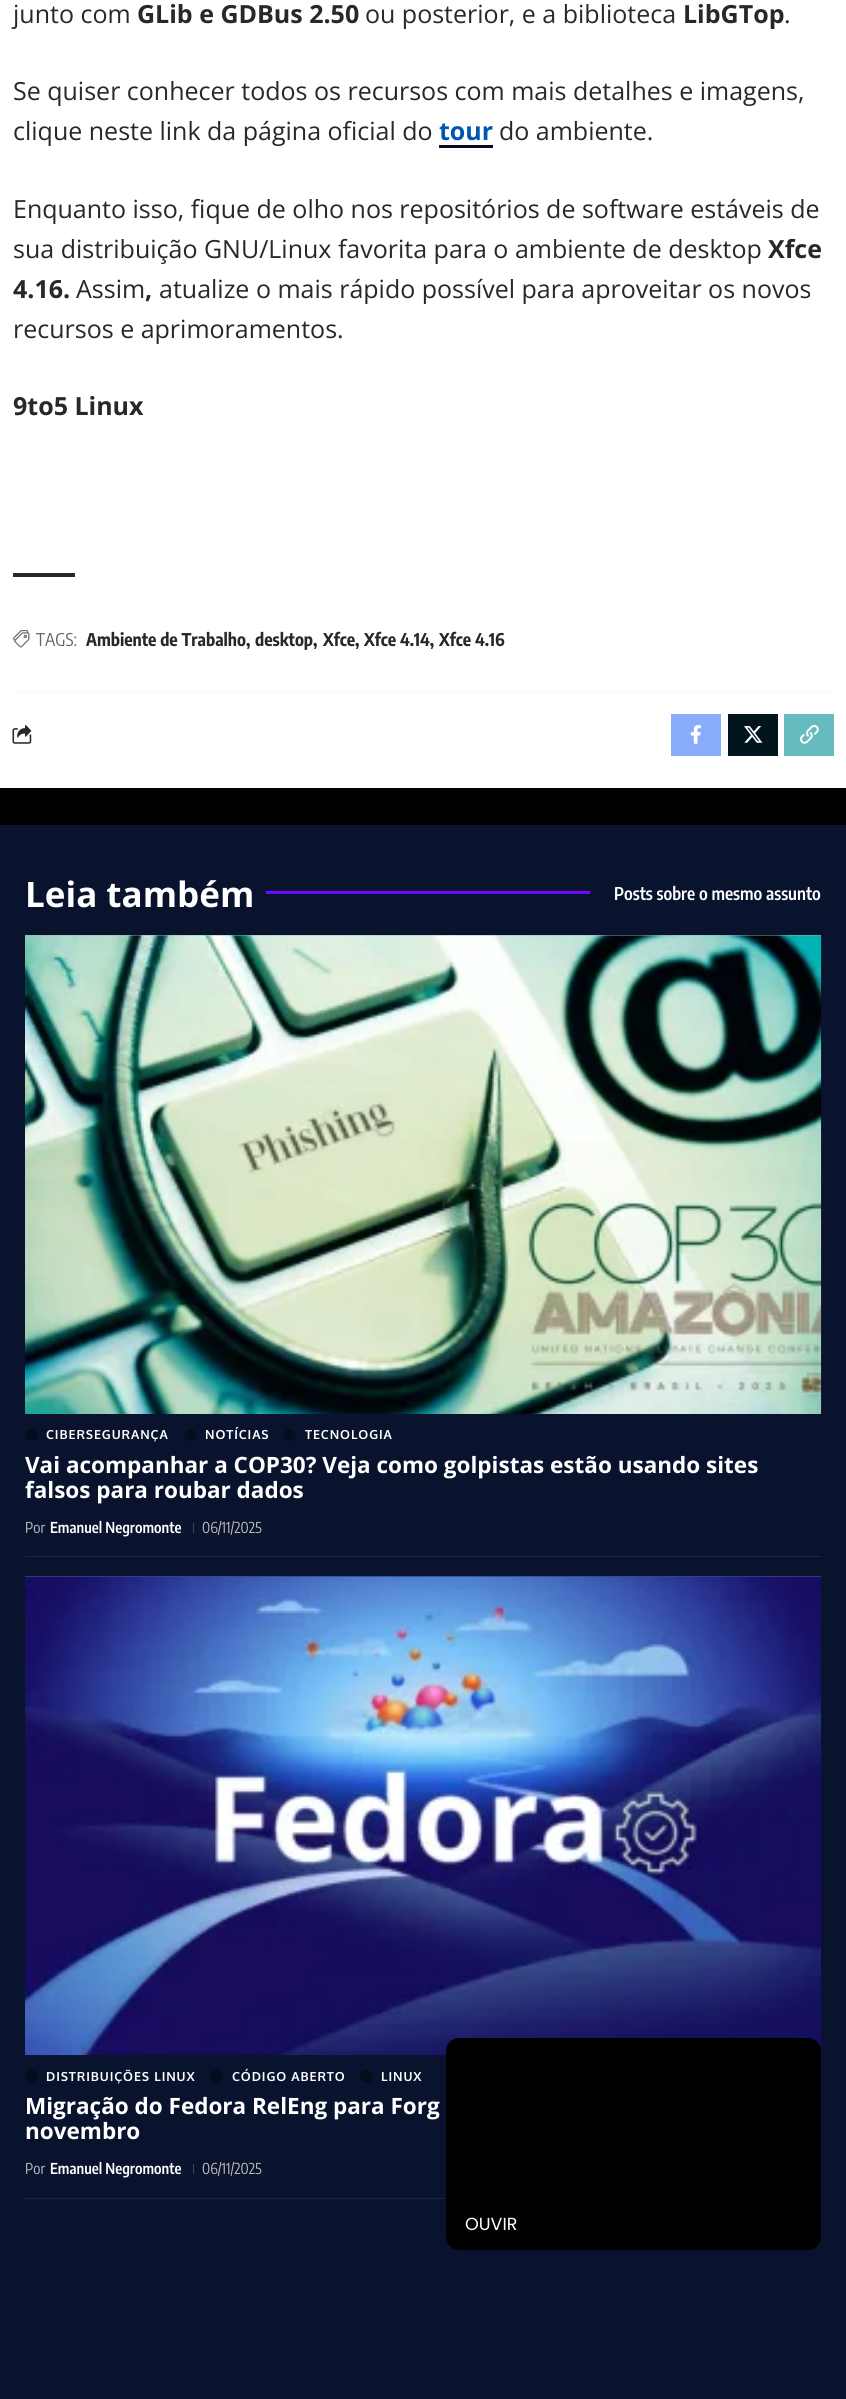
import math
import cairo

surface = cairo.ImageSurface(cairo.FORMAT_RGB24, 846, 2399)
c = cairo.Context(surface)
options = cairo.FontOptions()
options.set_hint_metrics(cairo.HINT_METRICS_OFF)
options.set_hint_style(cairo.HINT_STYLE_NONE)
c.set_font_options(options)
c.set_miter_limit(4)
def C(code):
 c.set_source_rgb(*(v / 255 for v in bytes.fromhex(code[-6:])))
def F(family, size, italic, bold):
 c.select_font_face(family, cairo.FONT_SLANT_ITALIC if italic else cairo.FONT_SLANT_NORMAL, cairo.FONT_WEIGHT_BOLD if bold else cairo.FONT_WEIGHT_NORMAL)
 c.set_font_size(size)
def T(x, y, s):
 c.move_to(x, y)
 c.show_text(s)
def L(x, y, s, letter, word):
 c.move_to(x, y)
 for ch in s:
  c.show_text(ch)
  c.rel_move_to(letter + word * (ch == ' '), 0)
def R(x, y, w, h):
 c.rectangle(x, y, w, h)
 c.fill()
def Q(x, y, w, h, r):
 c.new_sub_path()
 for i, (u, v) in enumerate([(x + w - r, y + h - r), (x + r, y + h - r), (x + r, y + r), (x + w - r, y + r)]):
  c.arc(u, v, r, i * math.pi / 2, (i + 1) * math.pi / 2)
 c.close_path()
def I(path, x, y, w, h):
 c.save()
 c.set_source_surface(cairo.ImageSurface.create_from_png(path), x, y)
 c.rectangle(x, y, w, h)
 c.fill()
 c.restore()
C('ffffff')
c.paint()
F('Open Sans',25,0,0)
C('282828')
T(13,23,'junto com')
F('Open Sans',25,0,1)
T(137,23,'GLib e GDBus 2.50')
F('Open Sans',25,0,0)
T(365,23,'ou posterior, e a biblioteca')
F('Open Sans',25,0,1)
T(683,23,'LibGTop')
F('Open Sans',25,0,0)
T(784,23,'.')
T(13,100,'Se quiser conhecer todos os recursos com mais detalhes e imagens,')
T(13,140,'clique neste link da página oficial do')
F('Open Sans',25,0,1)
C('0056b3')
T(439,140,'tour')
C('050c1c')
R(439,145,54,3)
F('Open Sans',25,0,0)
C('282828')
T(499,140,'do ambiente.')
T(13,218,'Enquanto isso, fique de olho nos repositórios de software estáveis de')
T(13,258,'sua distribuição GNU/Linux favorita para o ambiente de desktop')
F('Open Sans',25,0,1)
T(768,258,'Xfce')
T(13,298,'4.16.')
F('Open Sans',25,0,0)
T(76,298,'Assim')
F('Open Sans',25,0,1)
T(145,298,',')
F('Open Sans',25,0,0)
T(159,298,'atualize o mais rápido possível para aproveitar os novos')
T(13,338,'recursos e aprimoramentos.')
F('Open Sans',25,0,1)
T(13,415,'9to5 Linux')
R(13,573,62,4)
I('1.png',13,630,17,18)
F('Encode Sans Condensed',17.5,0,0)
C('666666')
T(36,646,'TAGS:')
F('Encode Sans Condensed',17.5,0,1)
C('282828')
T(86,646,'Ambiente de Trabalho,')
T(255,646,'desktop,')
T(323,646,'Xfce,')
T(364,646,'Xfce 4.14,')
T(439,646,'Xfce 4.16')
C('fbfbfb')
R(13,691,821,3)
I('2.png',12,725,20,19)
C('89abfc')
R(671,714,50,42)
I('3.png',690,725,11,19)
C('00151c')
R(728,714,50,42)
I('4.png',744,726,19,17)
C('66bbbf')
R(784,714,50,42)
I('5.png',800,725,19,19)
C('000000')
R(0,788,846,37)
C('09132e')
R(0,825,846,1574)
F('Open Sans',35,0,1)
C('ffffff')
T(25,907,'Leia também')
C('7008ff')
R(266,891,324,3)
F('Encode Sans Condensed SemiBold',17.5,0,0)
C('ffffff')
T(614,900,'Posts sobre o mesmo assunto')
C('8ebea9')
R(25,935,796,1)
I('6.png',25,935,797,479)
C('050c1c')
Q(25,1429,13,12,6)
c.fill()
F('Oxygen',12.5,0,1)
C('ffffff')
L(46,1439,'CIBERSEGURANÇA',.9,0)
C('050c1c')
c.new_path()
c.arc(190,1435,6,0,2 * math.pi)
c.fill()
C('ffffff')
L(205,1439,'NOTÍCIAS',.9,0)
C('050c1c')
c.new_path()
c.arc(290,1435,6,0,2 * math.pi)
c.fill()
C('ffffff')
L(305,1439,'TECNOLOGIA',.9,0)
F('Open Sans',22.5,0,1)
T(25,1473,'Vai acompanhar a COP30? Veja como golpistas estão usando sites')
T(25,1498,'falsos para roubar dados')
F('Encode Sans Condensed',15,0,0)
C('bbbbbb')
T(25,1533,'Por')
F('Encode Sans Condensed SemiBold',15,0,0)
C('ffffff')
T(50,1533,'Emanuel Negromonte')
C('3e4558')
R(193,1523,1,10)
F('Encode Sans Condensed',15,0,0)
C('bbbbbb')
T(202,1533,'06/11/2025')
C('1c253c')
R(25,1556,796,1)
C('38458e')
R(25,1576,796,1)
I('7.png',25,1576,797,480)
C('050c1c')
c.arc(31.5,2076.5,6.5,0,2 * math.pi)
c.fill()
F('Oxygen',12.5,0,1)
C('ffffff')
L(46,2081,'DISTRIBUIÇÕES LINUX',.9,0)
C('050c1c')
c.new_path()
c.arc(216.5,2076.5,6.5,0,2 * math.pi)
c.fill()
C('ffffff')
L(232,2081,'CÓDIGO ABERTO',.9,0)
C('050c1c')
c.new_path()
c.arc(366.5,2076.5,6.5,0,2 * math.pi)
c.fill()
C('ffffff')
L(381,2081,'LINUX',.9,0)
F('Open Sans',22.5,0,1)
T(25,2114,'Migração do Fedora RelEng para Forg')
T(25,2139,'novembro')
F('Encode Sans Condensed',15,0,0)
C('bbbbbb')
T(25,2174,'Por')
F('Encode Sans Condensed SemiBold',15,0,0)
C('ffffff')
T(50,2174,'Emanuel Negromonte')
C('3e4558')
R(193,2164,1,10)
F('Encode Sans Condensed',15,0,0)
C('bbbbbb')
T(202,2174,'06/11/2025')
C('1c253c')
R(25,2198,421,1)
C('000000')
Q(446,2038,375,212,13)
c.fill()
F('Poppins',17.5,0,0)
C('ffffff')
T(465,2230,'OUVIR')
surface.write_to_png('o.png')
